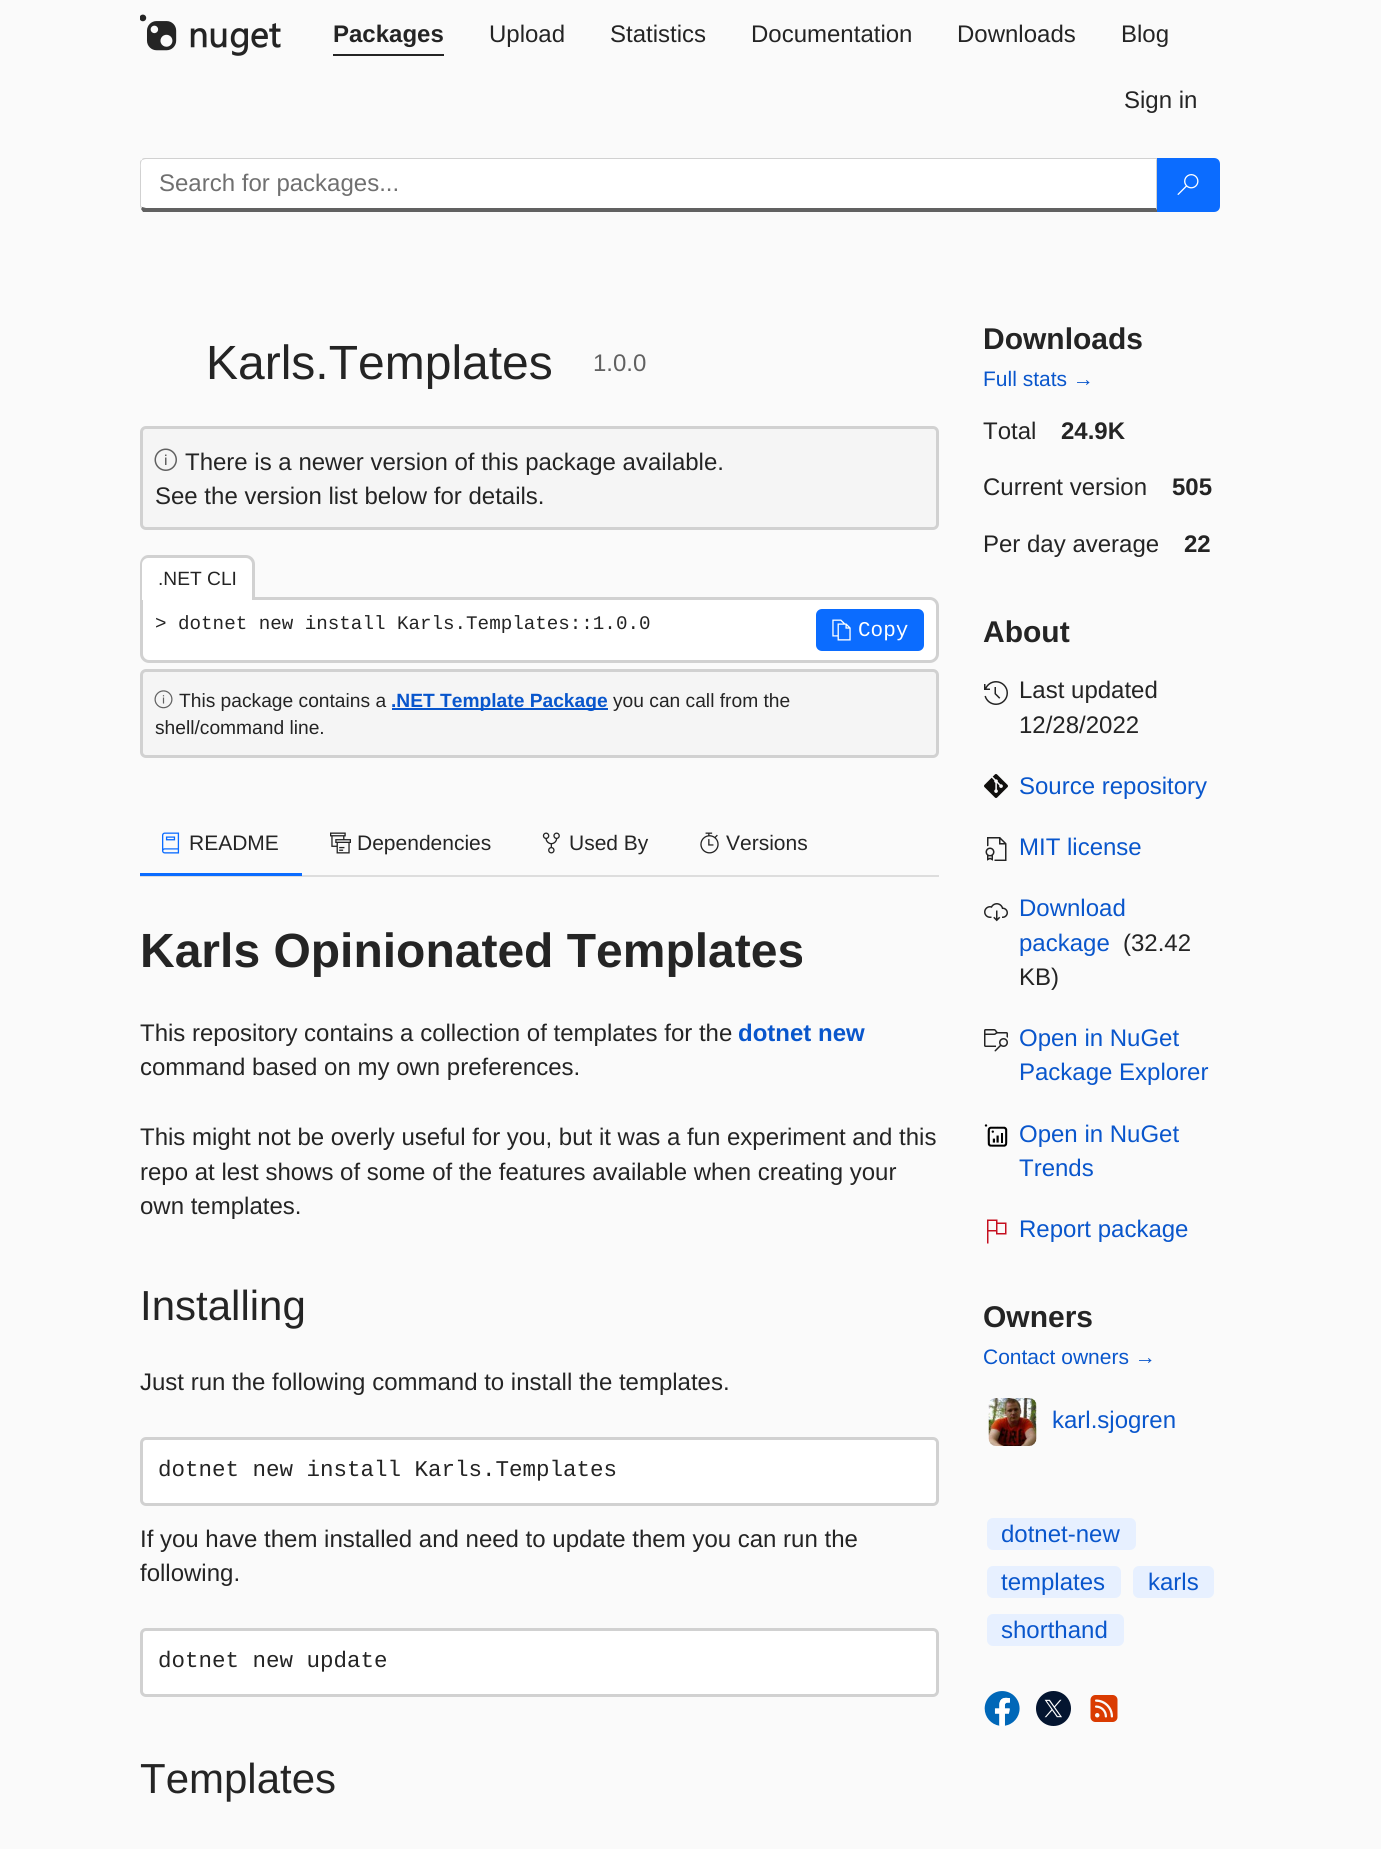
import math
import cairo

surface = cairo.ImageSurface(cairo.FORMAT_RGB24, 1381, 1849)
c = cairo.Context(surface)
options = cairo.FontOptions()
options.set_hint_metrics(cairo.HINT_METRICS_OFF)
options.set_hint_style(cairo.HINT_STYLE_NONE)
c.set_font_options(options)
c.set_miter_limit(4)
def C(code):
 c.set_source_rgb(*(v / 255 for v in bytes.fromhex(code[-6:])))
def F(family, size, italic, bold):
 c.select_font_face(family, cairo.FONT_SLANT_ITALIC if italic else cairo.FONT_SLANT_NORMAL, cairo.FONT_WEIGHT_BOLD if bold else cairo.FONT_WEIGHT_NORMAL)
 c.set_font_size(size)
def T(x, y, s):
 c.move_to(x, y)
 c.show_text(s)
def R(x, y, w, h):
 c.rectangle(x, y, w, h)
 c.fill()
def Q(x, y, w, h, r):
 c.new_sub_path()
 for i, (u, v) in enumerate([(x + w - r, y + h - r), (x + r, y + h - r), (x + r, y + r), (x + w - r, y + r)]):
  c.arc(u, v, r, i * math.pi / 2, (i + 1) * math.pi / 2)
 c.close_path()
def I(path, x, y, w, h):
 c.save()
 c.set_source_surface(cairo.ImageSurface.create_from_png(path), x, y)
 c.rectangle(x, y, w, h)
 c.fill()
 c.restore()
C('fafafa')
c.paint()
I('1.png',140,14,141,42)
F('Liberation Sans',24,0,1)
C('242424')
T(333,42,'Packages')
R(333,54,111,2)
F('Liberation Sans',24,0,0)
T(489,42,'Upload')
T(610,42,'Statistics')
T(751,42,'Documentation')
T(957,42,'Downloads')
T(1121,42,'Blog')
T(1124,108,'Sign in')
C('ffffff')
c.new_path()
c.move_to(146,159)
c.line_to(1156,159)
c.line_to(1156,208)
c.line_to(146,208)
c.curve_to(143,208,141,207,141,206)
c.line_to(141,164)
c.curve_to(141,161,143,159,146,159)
c.close_path()
c.fill()
C('d1d1d1')
c.new_path()
c.move_to(146,158)
c.curve_to(144,158,142,158,142,160)
c.curve_to(143,160,144,159,146,159)
c.line_to(1156,159)
c.line_to(1156,160)
c.line_to(1158,158)
c.close_path()
c.fill()
c.new_path()
c.move_to(1158,212)
c.line_to(1158,158)
c.line_to(1156,160)
c.line_to(1156,208)
c.close_path()
c.fill()
C('616161')
c.new_path()
c.move_to(1158,212)
c.line_to(143,212)
c.line_to(141,209)
c.line_to(142,207)
c.line_to(146,208)
c.line_to(1156,208)
c.close_path()
c.fill()
C('d1d1d1')
c.new_path()
c.move_to(142,160)
c.curve_to(140,160,140,162,140,164)
c.line_to(140,206)
c.line_to(141,209)
c.line_to(142,207)
c.line_to(141,206)
c.line_to(141,171)
c.curve_to(141,169,140,163,142,160)
c.close_path()
c.fill()
C('707070')
T(159,191,'Search for packages...')
C('0b6cff')
c.new_path()
c.move_to(1157,158)
c.line_to(1214,158)
c.curve_to(1217.5,158,1220,160.5,1220,164)
c.line_to(1220,206)
c.curve_to(1220,209.5,1217.5,212,1214,212)
c.line_to(1157,212)
c.close_path()
c.fill()
I('2.png',1177,174,22,21)
F('Liberation Sans',48,0,0)
C('242424')
T(206,379,'Karls.Templates')
F('Liberation Sans',24,0,0)
C('616161')
T(593,371,'1.0.0')
C('f5f5f5')
Q(141.5,427.5,796,101,4.5)
c.fill_preserve()
C('d1d1d1')
c.set_line_width(3)
c.stroke()
I('3.png',154,448,23,23)
C('242424')
T(185,470,'There is a newer version of this package available.')
T(155,504,'See the version list below for details.')
C('ffffff')
c.new_path()
c.move_to(141.5,598.5)
c.line_to(930,598.5)
c.curve_to(934,598.5,937.5,602,937.5,606)
c.line_to(937.5,654)
c.curve_to(937.5,658,934,661.5,930,661.5)
c.line_to(149,661.5)
c.curve_to(145,661.5,141.5,658,141.5,654)
c.close_path()
c.fill_preserve()
C('d1d1d1')
c.stroke()
C('ffffff')
c.new_path()
c.move_to(149,555)
c.line_to(246,555)
c.curve_to(251,555,255,559,255,564)
c.line_to(255,600)
c.line_to(140,600)
c.line_to(140,564)
c.curve_to(140,559,144,555,149,555)
c.close_path()
c.fill()
C('d1d1d1')
c.set_fill_rule(cairo.FILL_RULE_EVEN_ODD)
c.new_path()
c.move_to(148,555)
c.line_to(246,555)
c.curve_to(251,555,255,559,255,564)
c.line_to(255,600)
c.line_to(140,600)
c.line_to(140,564)
c.curve_to(140,559,144,555,148,555)
c.close_path()
c.move_to(148,558)
c.line_to(246,558)
c.curve_to(249,558,252,561,252,564)
c.line_to(252,600)
c.line_to(142,600)
c.line_to(142,564)
c.curve_to(142,561,145,558,148,558)
c.close_path()
c.fill()
F('Liberation Sans',19.2,0,0)
C('242424')
T(158,585,'.NET CLI')
F('Liberation Mono',19.2,0,0)
T(155,629,'> dotnet new install Karls.Templates::1.0.0')
C('0b6cff')
Q(816,609,108,42,6)
c.fill()
I('4.png',832,619,19,22)
F('Liberation Mono',21,0,0)
C('ffffff')
T(858,636,'Copy')
C('f5f5f5')
Q(141.5,670.5,796,86,4.5)
c.fill_preserve()
C('d1d1d1')
c.stroke()
I('5.png',154,690,19,19)
F('Liberation Sans',19.2,0,0)
C('242424')
T(179,707,'This package contains a')
C('0956cc')
R(392,708,216,2)
F('Liberation Sans',19.2,0,1)
T(391,707,'.NET Template Package')
F('Liberation Sans',19.2,0,0)
C('242424')
T(613,707,'you can call from the')
T(155,734,'shell/command line.')
C('dddddd')
R(140,875,799,2)
C('0b6cff')
R(140,873,162,3)
I('6.png',162,832,18,22)
F('Liberation Sans',21,0,0)
C('242424')
T(189,850,'README')
I('7.png',330,832,21,22)
T(357,850,'Dependencies')
I('8.png',542,832,18,22)
T(569,850,'Used By')
I('9.png',700,832,19,22)
T(726,850,'Versions')
F('Liberation Sans',48,0,1)
T(140,967,'Karls Opinionated Templates')
F('Liberation Sans',24,0,0)
T(140,1041,'This repository contains a collection of templates for the')
F('Liberation Sans',24,0,1)
C('0956cc')
T(738,1041,'dotnet new')
F('Liberation Sans',24,0,0)
C('242424')
T(140,1075,'command based on my own preferences.')
T(140,1145,'This might not be overly useful for you, but it was a fun experiment and this')
T(140,1180,'repo at lest shows of some of the features available when creating your')
T(140,1214,'own templates.')
F('Liberation Sans',42,0,0)
T(140,1320,'Installing')
F('Liberation Sans',24,0,0)
T(140,1390,'Just run the following command to install the templates.')
C('ffffff')
Q(141.5,1438.5,796,66,4.5)
c.fill_preserve()
C('d1d1d1')
c.stroke()
F('Liberation Mono',22.5,0,0)
C('242424')
T(158,1476,'dotnet new install Karls.Templates')
F('Liberation Sans',24,0,0)
T(140,1547,'If you have them installed and need to update them you can run the')
T(140,1581,'following.')
C('ffffff')
Q(141.5,1629.5,796,66,4.5)
c.fill_preserve()
C('d1d1d1')
c.stroke()
F('Liberation Mono',22.5,0,0)
C('242424')
T(158,1667,'dotnet new update')
F('Liberation Sans',42,0,0)
T(140,1793,'Templates')
F('Liberation Sans',30,0,1)
T(983,349,'Downloads')
F('Liberation Sans',21,0,0)
C('0956cc')
T(983,386,'Full stats →')
F('Liberation Sans',24,0,0)
C('242424')
T(983,439,'Total')
F('Liberation Sans',24,0,1)
T(1061,439,'24.9K')
F('Liberation Sans',24,0,0)
T(983,495,'Current version')
F('Liberation Sans',24,0,1)
T(1172,495,'505')
F('Liberation Sans',24,0,0)
T(983,552,'Per day average')
F('Liberation Sans',24,0,1)
T(1184,552,'22')
F('Liberation Sans',30,0,1)
T(983,642,'About')
I('10.png',984,681,24,24)
F('Liberation Sans',24,0,0)
T(1019,698,'Last updated')
T(1019,733,'12/28/2022')
I('11.png',984,774,24,24)
C('0956cc')
T(1019,794,'Source repository')
I('12.png',985,837,22,24)
T(1019,855,'MIT license')
I('13.png',984,903,24,19)
T(1019,916,'Download')
T(1019,951,'package')
C('242424')
T(1123,951,'(32.42')
T(1019,985,'KB)')
I('14.png',984,1029,24,23)
C('0956cc')
T(1019,1046,'Open in NuGet')
T(1019,1080,'Package Explorer')
I('15.png',984,1124,24,23)
T(1019,1142,'Open in NuGet')
T(1019,1176,'Trends')
I('16.png',987,1219,20,25)
T(1019,1237,'Report package')
F('Liberation Sans',30,0,1)
C('242424')
T(983,1327,'Owners')
F('Liberation Sans',21,0,0)
C('0956cc')
T(983,1364,'Contact owners →')
I('17.png',988,1398,49,48)
F('Liberation Sans',24,0,0)
T(1052,1428,'karl.sjogren')
C('e7f0ff')
Q(987,1518,149,32,6)
c.fill()
C('0956cc')
T(1001,1542,'dotnet-new')
C('e7f0ff')
Q(987,1566,134,32,6)
c.fill()
C('0956cc')
T(1001,1590,'templates')
C('e7f0ff')
Q(1133,1566,81,32,6)
c.fill()
C('0956cc')
T(1148,1590,'karls')
C('e7f0ff')
Q(987,1614,137,32,6)
c.fill()
C('0956cc')
T(1001,1638,'shorthand')
I('18.png',984,1691,36,35)
I('19.png',1036,1691,35,35)
I('20.png',1090,1695,28,27)
surface.write_to_png('o.png')
